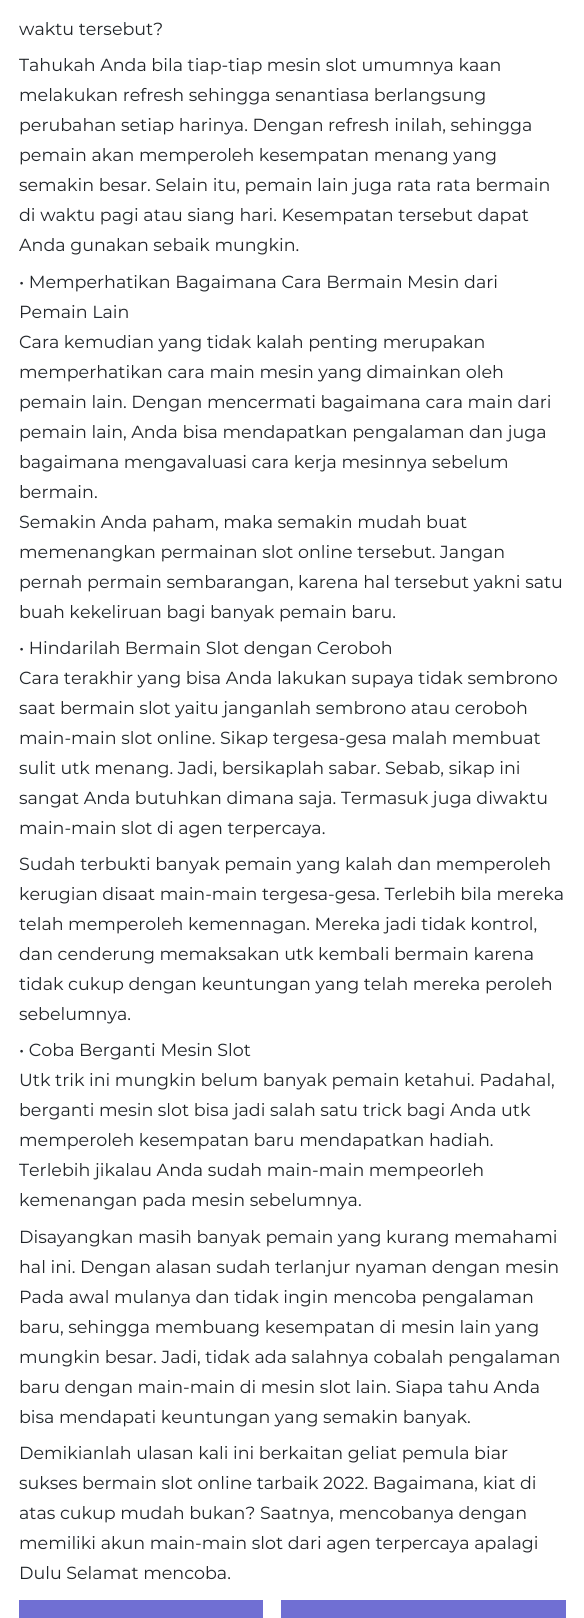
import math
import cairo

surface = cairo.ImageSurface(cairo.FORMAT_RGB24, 584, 1618)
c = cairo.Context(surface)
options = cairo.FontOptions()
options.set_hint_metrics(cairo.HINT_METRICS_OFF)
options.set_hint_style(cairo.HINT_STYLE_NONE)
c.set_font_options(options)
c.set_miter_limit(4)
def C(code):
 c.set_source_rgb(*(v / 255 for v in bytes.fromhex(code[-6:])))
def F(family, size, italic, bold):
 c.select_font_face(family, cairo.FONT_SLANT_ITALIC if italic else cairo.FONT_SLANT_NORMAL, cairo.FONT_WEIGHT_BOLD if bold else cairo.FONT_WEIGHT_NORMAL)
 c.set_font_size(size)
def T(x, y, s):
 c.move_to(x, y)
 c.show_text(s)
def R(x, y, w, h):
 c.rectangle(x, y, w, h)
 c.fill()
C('ffffff')
c.paint()
F('Montserrat',17.5,0,0)
C('212529')
T(19,35,'waktu tersebut?')
T(19,71,'Tahukah Anda bila tiap-tiap mesin slot umumnya kaan')
T(19,101,'melakukan refresh sehingga senantiasa berlangsung')
T(19,131,'perubahan setiap harinya. Dengan refresh inilah, sehingga')
T(19,161,'pemain akan memperoleh kesempatan menang yang')
T(19,191,'semakin besar. Selain itu, pemain lain juga rata rata bermain')
T(19,221,'di waktu pagi atau siang hari. Kesempatan tersebut dapat')
T(19,251,'Anda gunakan sebaik mungkin.')
T(19,288,'• Memperhatikan Bagaimana Cara Bermain Mesin dari')
T(19,318,'Pemain Lain')
T(19,348,'Cara kemudian yang tidak kalah penting merupakan')
T(19,378,'memperhatikan cara main mesin yang dimainkan oleh')
T(19,408,'pemain lain. Dengan mencermati bagaimana cara main dari')
T(19,438,'pemain lain, Anda bisa mendapatkan pengalaman dan juga')
T(19,468,'bagaimana mengavaluasi cara kerja mesinnya sebelum')
T(19,498,'bermain.')
T(19,528,'Semakin Anda paham, maka semakin mudah buat')
T(19,558,'memenangkan permainan slot online tersebut. Jangan')
T(19,588,'pernah permain sembarangan, karena hal tersebut yakni satu')
T(19,618,'buah kekeliruan bagi banyak pemain baru.')
T(19,654,'• Hindarilah Bermain Slot dengan Ceroboh')
T(19,684,'Cara terakhir yang bisa Anda lakukan supaya tidak sembrono')
T(19,714,'saat bermain slot yaitu janganlah sembrono atau ceroboh')
T(19,744,'main-main slot online. Sikap tergesa-gesa malah membuat')
T(19,774,'sulit utk menang. Jadi, bersikaplah sabar. Sebab, sikap ini')
T(19,804,'sangat Anda butuhkan dimana saja. Termasuk juga diwaktu')
T(19,834,'main-main slot di agen terpercaya.')
T(19,870,'Sudah terbukti banyak pemain yang kalah dan memperoleh')
T(19,900,'kerugian disaat main-main tergesa-gesa. Terlebih bila mereka')
T(19,930,'telah memperoleh kemennagan. Mereka jadi tidak kontrol,')
T(19,960,'dan cenderung memaksakan utk kembali bermain karena')
T(19,990,'tidak cukup dengan keuntungan yang telah mereka peroleh')
T(19,1020,'sebelumnya.')
T(19,1056,'• Coba Berganti Mesin Slot')
T(19,1086,'Utk trik ini mungkin belum banyak pemain ketahui. Padahal,')
T(19,1116,'berganti mesin slot bisa jadi salah satu trick bagi Anda utk')
T(19,1146,'memperoleh kesempatan baru mendapatkan hadiah.')
T(19,1176,'Terlebih jikalau Anda sudah main-main mempeorleh')
T(19,1206,'kemenangan pada mesin sebelumnya.')
T(19,1243,'Disayangkan masih banyak pemain yang kurang memahami')
T(19,1273,'hal ini. Dengan alasan sudah terlanjur nyaman dengan mesin')
T(19,1303,'Pada awal mulanya dan tidak ingin mencoba pengalaman')
T(19,1333,'baru, sehingga membuang kesempatan di mesin lain yang')
T(19,1363,'mungkin besar. Jadi, tidak ada salahnya cobalah pengalaman')
T(19,1393,'baru dengan main-main di mesin slot lain. Siapa tahu Anda')
T(19,1423,'bisa mendapati keuntungan yang semakin banyak.')
T(19,1459,'Demikianlah ulasan kali ini berkaitan geliat pemula biar')
T(19,1489,'sukses bermain slot online tarbaik 2022. Bagaimana, kiat di')
T(19,1519,'atas cukup mudah bukan? Saatnya, mencobanya dengan')
T(19,1549,'memiliki akun main-main slot dari agen terpercaya apalagi')
T(19,1579,'Dulu Selamat mencoba.')
C('706fd3')
R(19,1600,244,18)
R(281,1600,285,18)
surface.write_to_png('o.png')
